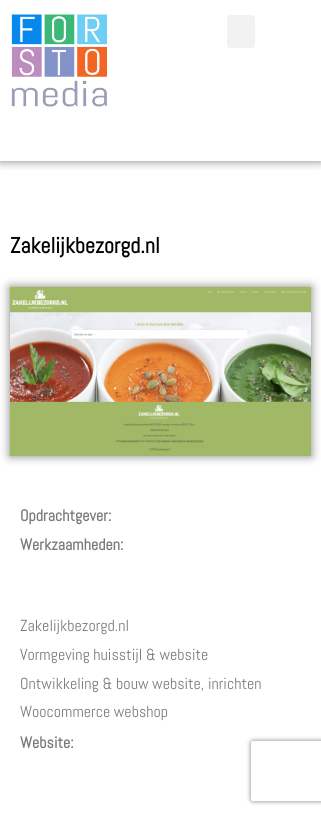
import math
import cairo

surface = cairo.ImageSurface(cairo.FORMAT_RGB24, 321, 815)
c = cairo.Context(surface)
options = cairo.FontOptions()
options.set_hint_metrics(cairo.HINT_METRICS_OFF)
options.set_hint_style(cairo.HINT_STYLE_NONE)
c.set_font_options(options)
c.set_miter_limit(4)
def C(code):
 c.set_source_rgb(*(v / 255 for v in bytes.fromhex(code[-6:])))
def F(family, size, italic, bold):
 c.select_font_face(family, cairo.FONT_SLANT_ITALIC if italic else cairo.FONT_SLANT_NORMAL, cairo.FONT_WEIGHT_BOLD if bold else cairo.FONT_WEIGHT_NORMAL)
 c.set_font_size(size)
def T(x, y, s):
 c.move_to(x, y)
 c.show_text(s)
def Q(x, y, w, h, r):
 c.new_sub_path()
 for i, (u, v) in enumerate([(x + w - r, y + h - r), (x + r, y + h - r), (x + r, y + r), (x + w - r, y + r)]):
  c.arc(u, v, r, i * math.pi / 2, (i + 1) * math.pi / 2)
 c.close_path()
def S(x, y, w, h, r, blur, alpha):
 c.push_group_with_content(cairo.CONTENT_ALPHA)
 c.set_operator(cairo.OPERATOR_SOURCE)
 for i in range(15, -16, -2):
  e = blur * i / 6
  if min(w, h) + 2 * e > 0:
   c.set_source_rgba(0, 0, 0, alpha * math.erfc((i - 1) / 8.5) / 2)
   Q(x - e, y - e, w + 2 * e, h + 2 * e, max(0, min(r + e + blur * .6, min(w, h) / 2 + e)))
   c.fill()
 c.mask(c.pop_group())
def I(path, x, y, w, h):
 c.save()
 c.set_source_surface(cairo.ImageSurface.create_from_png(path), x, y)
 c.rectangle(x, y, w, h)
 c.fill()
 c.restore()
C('ffffff')
c.paint()
c.save()
c.rectangle(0,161,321,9)
c.clip()
C('000000')
S(0,0,321,161,0,5,.5)
c.restore()
I('1.png',11,14,96,93)
C('f2f2f2')
Q(227,15,28,33,3)
c.fill()
F('Abel',22,0,1)
C('000000')
T(10,253,'Zakelijkbezorgd.nl')
C('000000')
S(10,287,301,169,0,5,.5)
I('2.png',10,287,301,169)
F('Abel',16,0,1)
C('7a7a7a')
T(20,521,'Opdrachtgever:')
T(20,550,'Werkzaamheden:')
F('Abel',16,0,0)
T(20,631,'Zakelijkbezorgd.nl')
T(20,660,'Vormgeving huisstijl & website')
T(20,689,'Ontwikkeling & bouw website, inrichten')
T(20,717,'Woocommerce webshop')
F('Abel',16,0,1)
T(20,748,'Website:')
c.save()
c.set_fill_rule(cairo.FILL_RULE_EVEN_ODD)
c.new_path()
c.move_to(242,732)
c.line_to(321,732)
c.line_to(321,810)
c.line_to(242,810)
c.close_path()
c.move_to(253,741)
c.line_to(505,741)
c.curve_to(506,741,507,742,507,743)
c.line_to(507,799)
c.curve_to(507,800,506,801,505,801)
c.line_to(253,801)
c.curve_to(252,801,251,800,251,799)
c.line_to(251,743)
c.curve_to(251,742,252,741,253,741)
c.close_path()
c.clip()
C('808080')
S(251,741,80,60,2,2.5,1)
c.restore()
surface.write_to_png('o.png')
